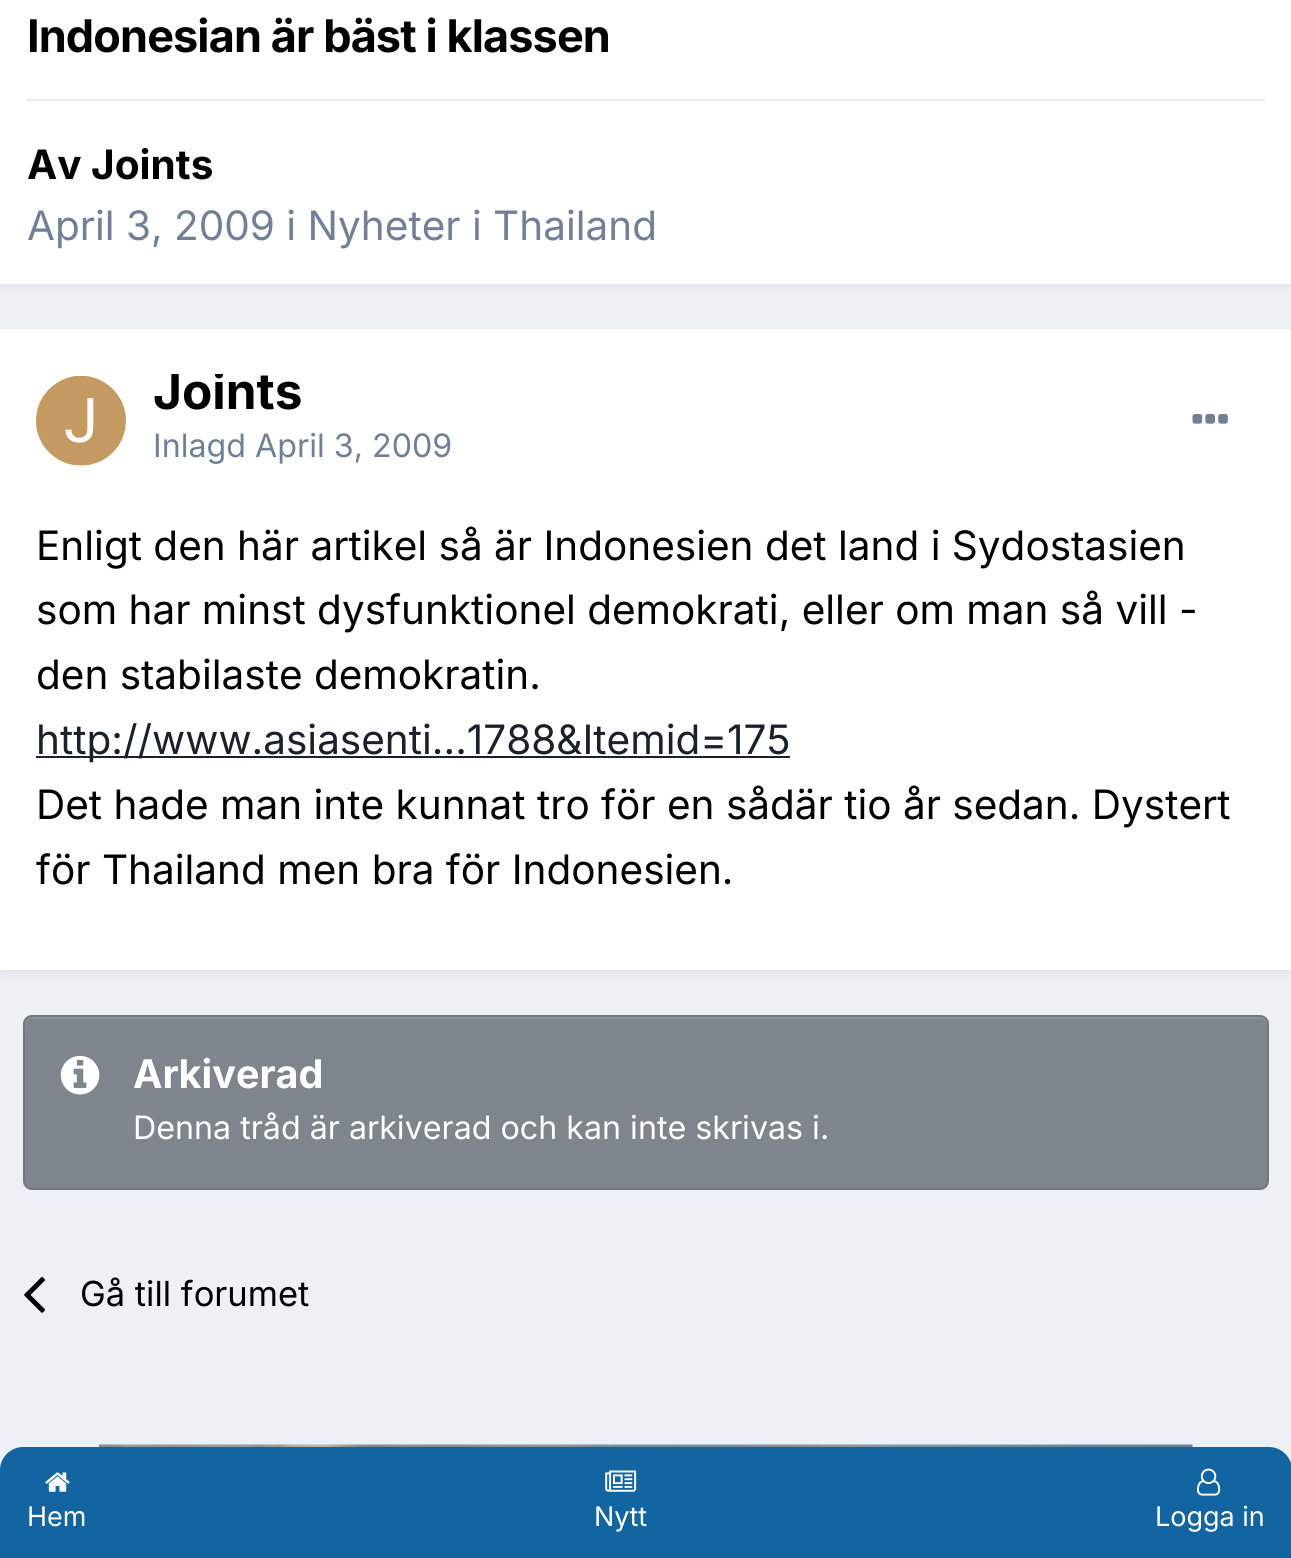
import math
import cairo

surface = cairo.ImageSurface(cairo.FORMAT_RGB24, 1291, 1558)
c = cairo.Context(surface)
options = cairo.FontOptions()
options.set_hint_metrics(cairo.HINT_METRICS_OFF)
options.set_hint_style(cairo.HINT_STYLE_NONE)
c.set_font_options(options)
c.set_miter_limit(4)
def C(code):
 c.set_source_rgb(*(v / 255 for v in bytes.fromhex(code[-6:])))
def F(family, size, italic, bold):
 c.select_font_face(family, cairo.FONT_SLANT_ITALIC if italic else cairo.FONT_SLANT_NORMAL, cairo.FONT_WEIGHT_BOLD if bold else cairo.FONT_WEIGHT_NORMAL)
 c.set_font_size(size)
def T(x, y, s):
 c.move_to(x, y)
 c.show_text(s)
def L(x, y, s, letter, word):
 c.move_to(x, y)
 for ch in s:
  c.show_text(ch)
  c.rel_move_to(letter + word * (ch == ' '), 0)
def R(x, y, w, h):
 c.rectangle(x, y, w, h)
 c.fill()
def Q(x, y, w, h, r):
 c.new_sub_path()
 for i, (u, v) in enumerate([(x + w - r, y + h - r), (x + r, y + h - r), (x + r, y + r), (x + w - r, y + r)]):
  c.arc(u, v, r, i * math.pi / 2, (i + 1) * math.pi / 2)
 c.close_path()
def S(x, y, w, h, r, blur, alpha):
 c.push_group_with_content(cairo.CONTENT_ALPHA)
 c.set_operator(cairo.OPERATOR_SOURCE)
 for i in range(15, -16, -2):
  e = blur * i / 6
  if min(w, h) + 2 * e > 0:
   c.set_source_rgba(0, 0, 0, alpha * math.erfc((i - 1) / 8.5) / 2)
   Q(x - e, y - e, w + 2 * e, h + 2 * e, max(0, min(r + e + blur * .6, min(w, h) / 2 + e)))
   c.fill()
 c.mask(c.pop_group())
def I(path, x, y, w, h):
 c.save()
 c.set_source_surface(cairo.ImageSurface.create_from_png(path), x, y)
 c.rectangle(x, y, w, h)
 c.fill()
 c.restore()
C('edf0f4')
c.paint()
C('2d3748')
S(2,-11,1287,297,0,4.5,.1)
C('ffffff')
R(0,0,1291,284)
F('Inter',45,0,1)
C('000000')
L(27,52,'Indonesian är bäst i klassen',-.9,0)
C('ebebeb')
R(27,99,1238,2)
F('Inter',40.5,0,1)
C('000000')
T(27,179,'Av Joints')
F('Inter',40.5,0,0)
C('718096')
T(27,240,'April 3, 2009 i Nyheter i Thailand')
C('2d3748')
S(2,335,1287,637,0,4.5,.1)
C('ffffff')
R(0,329,1291,641)
I('1.png',36,376,90,90)
c.save()
c.rectangle(153,374,149,36)
c.clip()
F('Inter',49.5,0,1)
C('000000')
T(153,409,'Joints')
c.restore()
F('Inter',32.2,0,0)
C('718096')
T(153,457,'Inlagd April 3, 2009')
I('2.png',1192,414,36,10)
F('Inter',40.5,0,0)
C('000000')
T(36,560,'Enligt den här artikel så är Indonesien det land i Sydostasien')
T(36,624,'som har minst dysfunktionel demokrati, eller om man så vill -')
T(36,689,'den stabilaste demokratin.')
C('1a202c')
R(36,756,754,2)
T(36,754,'http://www.asiasenti...1788&Itemid=175')
C('000000')
T(36,819,'Det hade man inte kunnat tro för en sådär tio år sedan. Dystert')
T(36,884,'för Thailand men bra för Indonesien.')
C('7f858d')
Q(23,1015,1246,175,9)
c.fill()
C('8c9198')
c.new_path()
c.move_to(32,1019)
c.line_to(1260,1019)
c.curve_to(1264,1019,1267,1022,1267,1026)
c.line_to(1267,1024)
c.curve_to(1267,1020,1264,1017,1260,1017)
c.line_to(32,1017)
c.curve_to(28,1017,25,1020,25,1024)
c.line_to(25,1026)
c.curve_to(25,1022,28,1019,32,1019)
c.close_path()
c.fill()
Q(24,1016,1244,173,8)
c.set_source_rgba(0,0,0,0.1)
c.stroke()
I('3.png',60,1055,40,40)
F('Inter',39.5,0,1)
C('ffffff')
T(133,1088,'Arkiverad')
F('Inter',32.2,0,0)
T(133,1139,'Denna tråd är arkiverad och kan inte skrivas i.')
I('4.png',24,1277,21,36)
F('Inter',34.5,0,0)
C('000000')
T(80,1306,'Gå till forumet')
C('f7fafc')
R(1192,1445,1,2)
I('5.png',99,1444,1094,3)
C('1265a1')
c.new_path()
c.move_to(23,1447)
c.line_to(1269,1447)
c.curve_to(1281.5,1447,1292,1457.5,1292,1470)
c.line_to(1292,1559)
c.line_to(0,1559)
c.line_to(0,1470)
c.curve_to(0,1457.5,10.5,1447,23,1447)
c.close_path()
c.fill()
I('6.png',45,1472,25,20)
F('Inter',27,0,0)
C('ffffff')
T(27,1526,'Hem')
I('7.png',605,1470,32,22)
T(594,1526,'Nytt')
I('8.png',1197,1468,24,28)
T(1155,1526,'Logga in')
surface.write_to_png('o.png')
